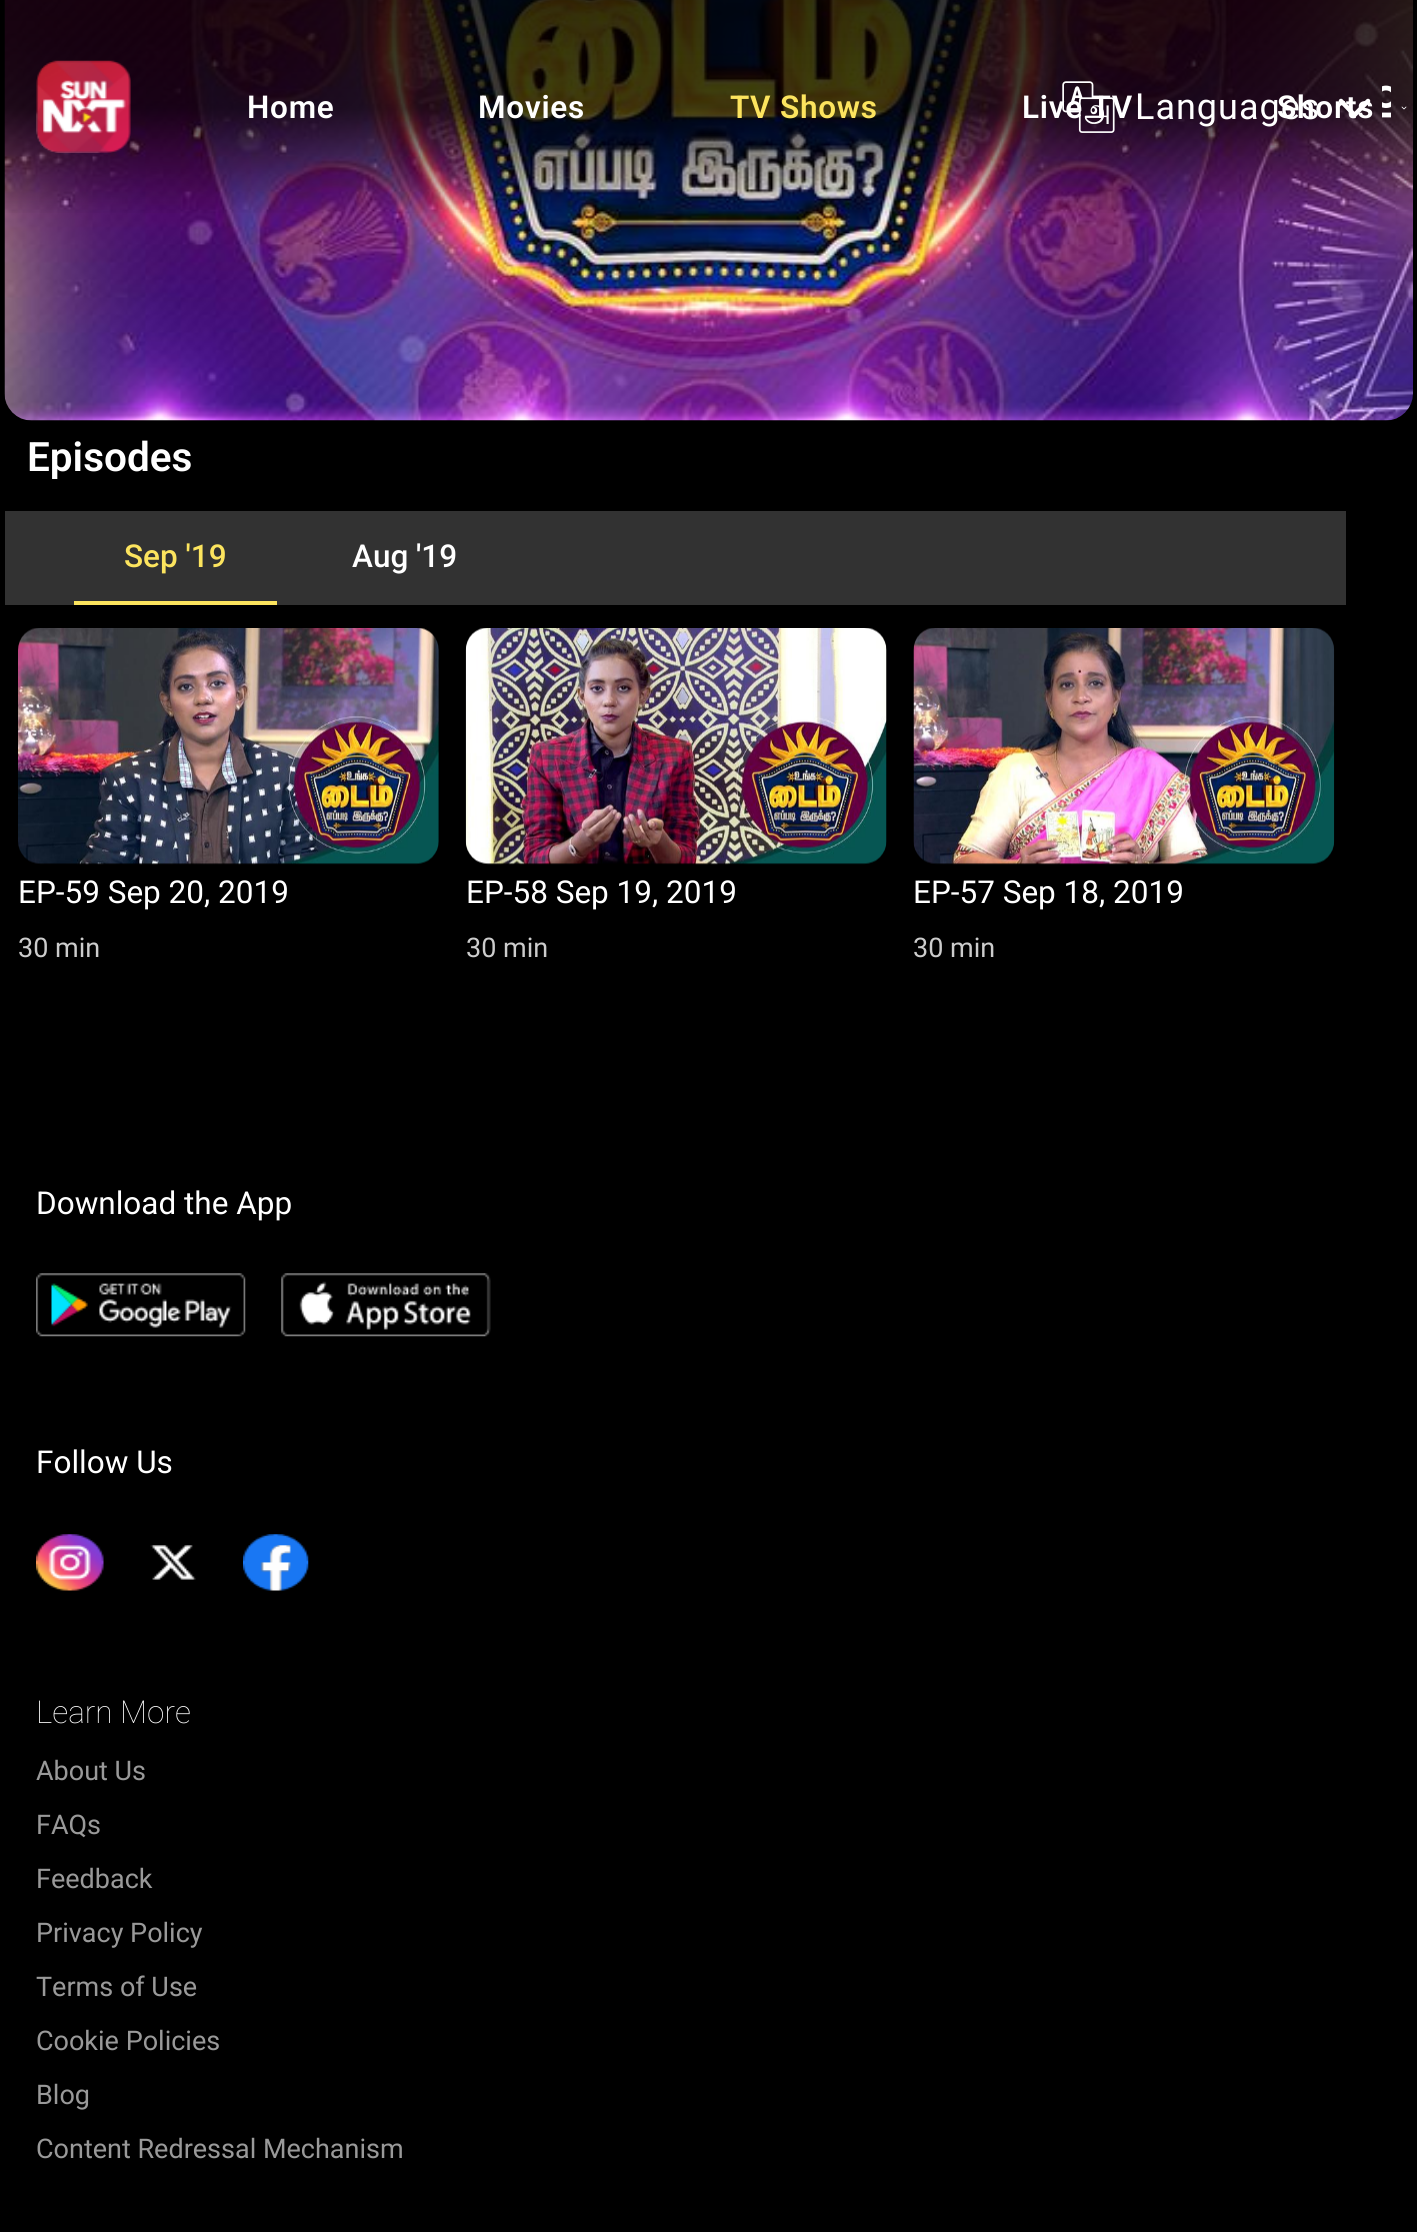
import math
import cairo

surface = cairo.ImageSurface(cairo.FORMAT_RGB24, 1417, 2232)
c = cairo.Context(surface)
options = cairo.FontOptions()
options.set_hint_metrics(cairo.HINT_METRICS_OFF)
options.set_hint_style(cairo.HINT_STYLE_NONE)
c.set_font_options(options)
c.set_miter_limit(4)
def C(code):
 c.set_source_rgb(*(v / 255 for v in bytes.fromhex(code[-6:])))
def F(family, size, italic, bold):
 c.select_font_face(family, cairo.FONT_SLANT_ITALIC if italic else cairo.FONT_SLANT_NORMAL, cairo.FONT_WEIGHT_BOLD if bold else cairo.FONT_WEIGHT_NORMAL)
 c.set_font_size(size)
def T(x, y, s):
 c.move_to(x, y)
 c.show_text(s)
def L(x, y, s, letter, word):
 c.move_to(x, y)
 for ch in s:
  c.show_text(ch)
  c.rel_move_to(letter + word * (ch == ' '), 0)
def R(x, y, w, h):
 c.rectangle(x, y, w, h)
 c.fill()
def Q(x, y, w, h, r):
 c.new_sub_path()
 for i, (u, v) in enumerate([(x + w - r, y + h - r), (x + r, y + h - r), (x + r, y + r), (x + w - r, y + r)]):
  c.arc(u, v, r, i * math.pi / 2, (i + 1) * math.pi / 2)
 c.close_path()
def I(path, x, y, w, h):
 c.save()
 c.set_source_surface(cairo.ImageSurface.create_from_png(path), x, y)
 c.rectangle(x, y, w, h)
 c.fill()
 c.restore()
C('000000')
c.paint()
I('3.png',4,0,1409,421)
gradient = cairo.LinearGradient(709,0,709,216)
gradient.add_color_stop_rgba(0,0,0,0,.8)
gradient.add_color_stop_rgba(.5,0,0,0,.75)
gradient.add_color_stop_rgba(1,0,0,0,0)
c.set_source(gradient)
R(4,0,1409,213)
I('1.png',36,60,95,93)
F('Roboto SemiBold',31.5,0,0)
C('ffffff')
L(1022,118,'Live TV',.75,0)
I('2.png',1062,81,53,52)
L(1277,118,'Shorts',.75,0)
F('Roboto',36,0,0)
L(1135,119,'Languages',1,0)
c.new_path()
c.move_to(1341,101)
c.line_to(1354.5,115)
c.line_to(1368,101)
c.set_line_width(4.5)
c.set_line_cap(cairo.LINE_CAP_ROUND)
c.set_line_join(cairo.LINE_JOIN_ROUND)
c.stroke()
c.save()
Q(1382,81,9,54,4.5)
c.clip()
c.new_path()
c.move_to(1377,97)
c.curve_to(1377,108.5,1395,108.5,1395,97)
c.curve_to(1395,85,1377,85,1377,97)
c.close_path()
c.move_to(1372.5,128)
c.curve_to(1372.5,122.5,1372.5,116.5,1379.5,115)
c.line_to(1392.5,115)
c.curve_to(1399.5,116.5,1399.5,122.5,1399.5,128)
c.move_to(1372.5,128)
c.curve_to(1372.5,122.5,1372.5,116.5,1379.5,115)
c.line_to(1392.5,115)
c.curve_to(1399.5,116.5,1399.5,122.5,1399.5,128)
c.set_line_width(4.8)
c.stroke()
c.restore()
c.new_path()
c.move_to(1402,107)
c.line_to(1404,109)
c.line_to(1406,107)
c.set_line_width(.8)
c.stroke()
F('Roboto SemiBold',31.5,0,0)
L(247,118,'Home',.75,0)
L(478,118,'Movies',.75,0)
C('fce45e')
L(730,118,'TV Shows',.75,0)
c.save()
c.rectangle(27,432,164,47)
c.clip()
F('Roboto SemiBold',40.5,0,0)
C('ffffff')
T(27,471,'Episodes')
c.restore()
C('323232')
R(5,511,1341,94)
C('fce45e')
R(74,601,203,4)
F('Roboto Medium',31.5,0,0)
T(124,567,'Sep \'19')
C('ffffff')
T(352,567,'Aug \'19')
I('4.png',18,628,421,237)
F('Roboto',31.5,0,0)
T(18,903,'EP-59 Sep 20, 2019')
F('Roboto',27,0,0)
C('cccccc')
T(18,957,'30 min')
I('5.png',465,628,422,237)
F('Roboto',31.5,0,0)
C('ffffff')
T(466,903,'EP-58 Sep 19, 2019')
F('Roboto',27,0,0)
C('cccccc')
T(466,957,'30 min')
I('6.png',913,628,422,237)
F('Roboto',31.5,0,0)
C('ffffff')
T(913,903,'EP-57 Sep 18, 2019')
F('Roboto',27,0,0)
C('cccccc')
T(913,957,'30 min')
F('Roboto',31.5,0,0)
C('ffffff')
T(36,1214,'Download the App')
I('7.png',36,1273,210,64)
I('8.png',281,1273,210,64)
T(36,1473,'Follow Us')
I('9.png',36,1534,68,57)
I('10.png',150,1545,46,35)
I('11.png',243,1534,66,57)
F('Roboto Thin',31.5,0,0)
T(36,1723,'Learn More')
F('Roboto',27,0,0)
C('999999')
T(36,1780,'About Us')
T(36,1834,'FAQs')
T(36,1888,'Feedback')
T(36,1942,'Privacy Policy')
T(36,1996,'Terms of Use')
T(36,2050,'Cookie Policies')
T(36,2104,'Blog')
T(36,2158,'Content Redressal Mechanism')
surface.write_to_png('o.png')
